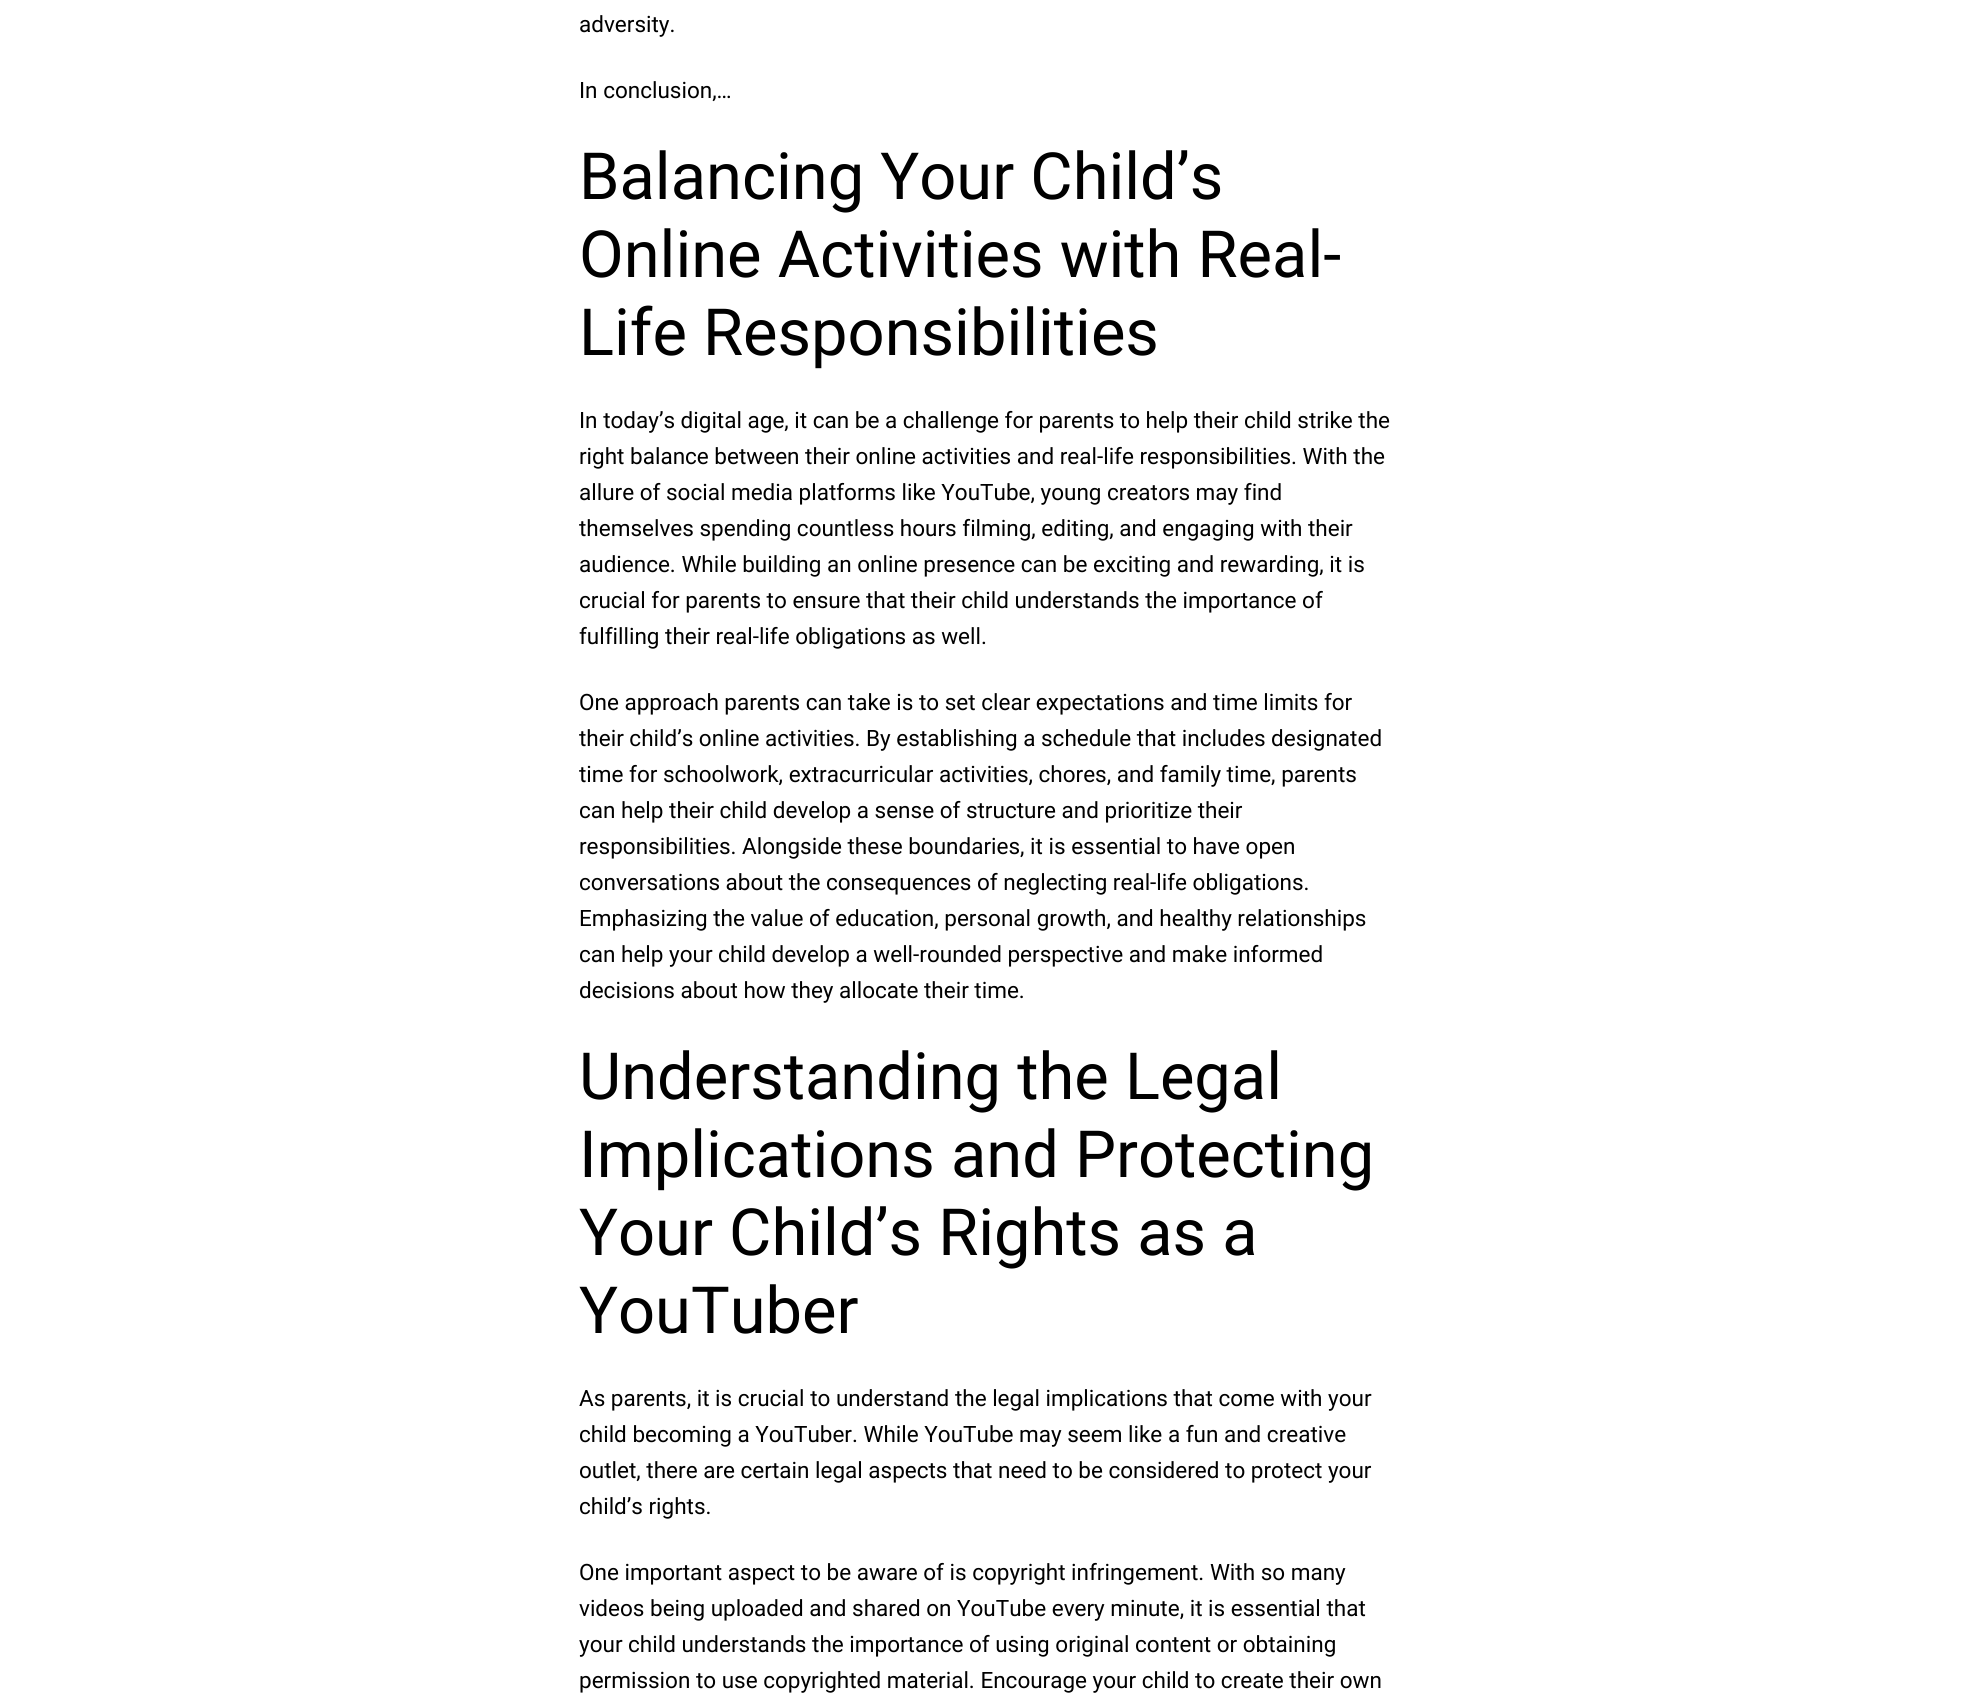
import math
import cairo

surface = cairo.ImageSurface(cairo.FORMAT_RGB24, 1971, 1702)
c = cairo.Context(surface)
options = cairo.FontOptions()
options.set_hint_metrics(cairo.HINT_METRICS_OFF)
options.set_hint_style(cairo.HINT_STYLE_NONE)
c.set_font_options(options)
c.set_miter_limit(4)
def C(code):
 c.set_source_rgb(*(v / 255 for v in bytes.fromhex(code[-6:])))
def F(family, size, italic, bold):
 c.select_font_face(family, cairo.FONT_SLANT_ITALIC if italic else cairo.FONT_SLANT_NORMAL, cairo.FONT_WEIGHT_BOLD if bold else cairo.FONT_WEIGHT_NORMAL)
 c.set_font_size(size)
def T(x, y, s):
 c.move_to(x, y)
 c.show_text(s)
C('ffffff')
c.paint()
F('Roboto',22.5,0,0)
C('000000')
T(579,32,'adversity.')
T(579,98,'In conclusion,…')
F('Roboto',65,0,0)
T(579,199,'Balancing Your Child’s')
T(579,277,'Online Activities with Real-')
T(579,355,'Life Responsibilities')
F('Roboto',22.5,0,0)
T(579,428,'In today’s digital age, it can be a challenge for parents to help their child strike the')
T(579,464,'right balance between their online activities and real-life responsibilities. With the')
T(579,500,'allure of social media platforms like YouTube, young creators may find')
T(579,536,'themselves spending countless hours filming, editing, and engaging with their')
T(579,572,'audience. While building an online presence can be exciting and rewarding, it is')
T(579,608,'crucial for parents to ensure that their child understands the importance of')
T(579,644,'fulfilling their real-life obligations as well.')
T(579,710,'One approach parents can take is to set clear expectations and time limits for')
T(579,746,'their child’s online activities. By establishing a schedule that includes designated')
T(579,782,'time for schoolwork, extracurricular activities, chores, and family time, parents')
T(579,818,'can help their child develop a sense of structure and prioritize their')
T(579,854,'responsibilities. Alongside these boundaries, it is essential to have open')
T(579,890,'conversations about the consequences of neglecting real-life obligations.')
T(579,926,'Emphasizing the value of education, personal growth, and healthy relationships')
T(579,962,'can help your child develop a well-rounded perspective and make informed')
T(579,998,'decisions about how they allocate their time.')
F('Roboto',65,0,0)
T(579,1099,'Understanding the Legal')
T(579,1177,'Implications and Protecting')
T(579,1255,'Your Child’s Rights as a')
T(579,1333,'YouTuber')
F('Roboto',22.5,0,0)
T(579,1406,'As parents, it is crucial to understand the legal implications that come with your')
T(579,1442,'child becoming a YouTuber. While YouTube may seem like a fun and creative')
T(579,1478,'outlet, there are certain legal aspects that need to be considered to protect your')
T(579,1514,'child’s rights.')
T(579,1580,'One important aspect to be aware of is copyright infringement. With so many')
T(579,1616,'videos being uploaded and shared on YouTube every minute, it is essential that')
T(579,1652,'your child understands the importance of using original content or obtaining')
T(579,1688,'permission to use copyrighted material. Encourage your child to create their own')
surface.write_to_png('o.png')
